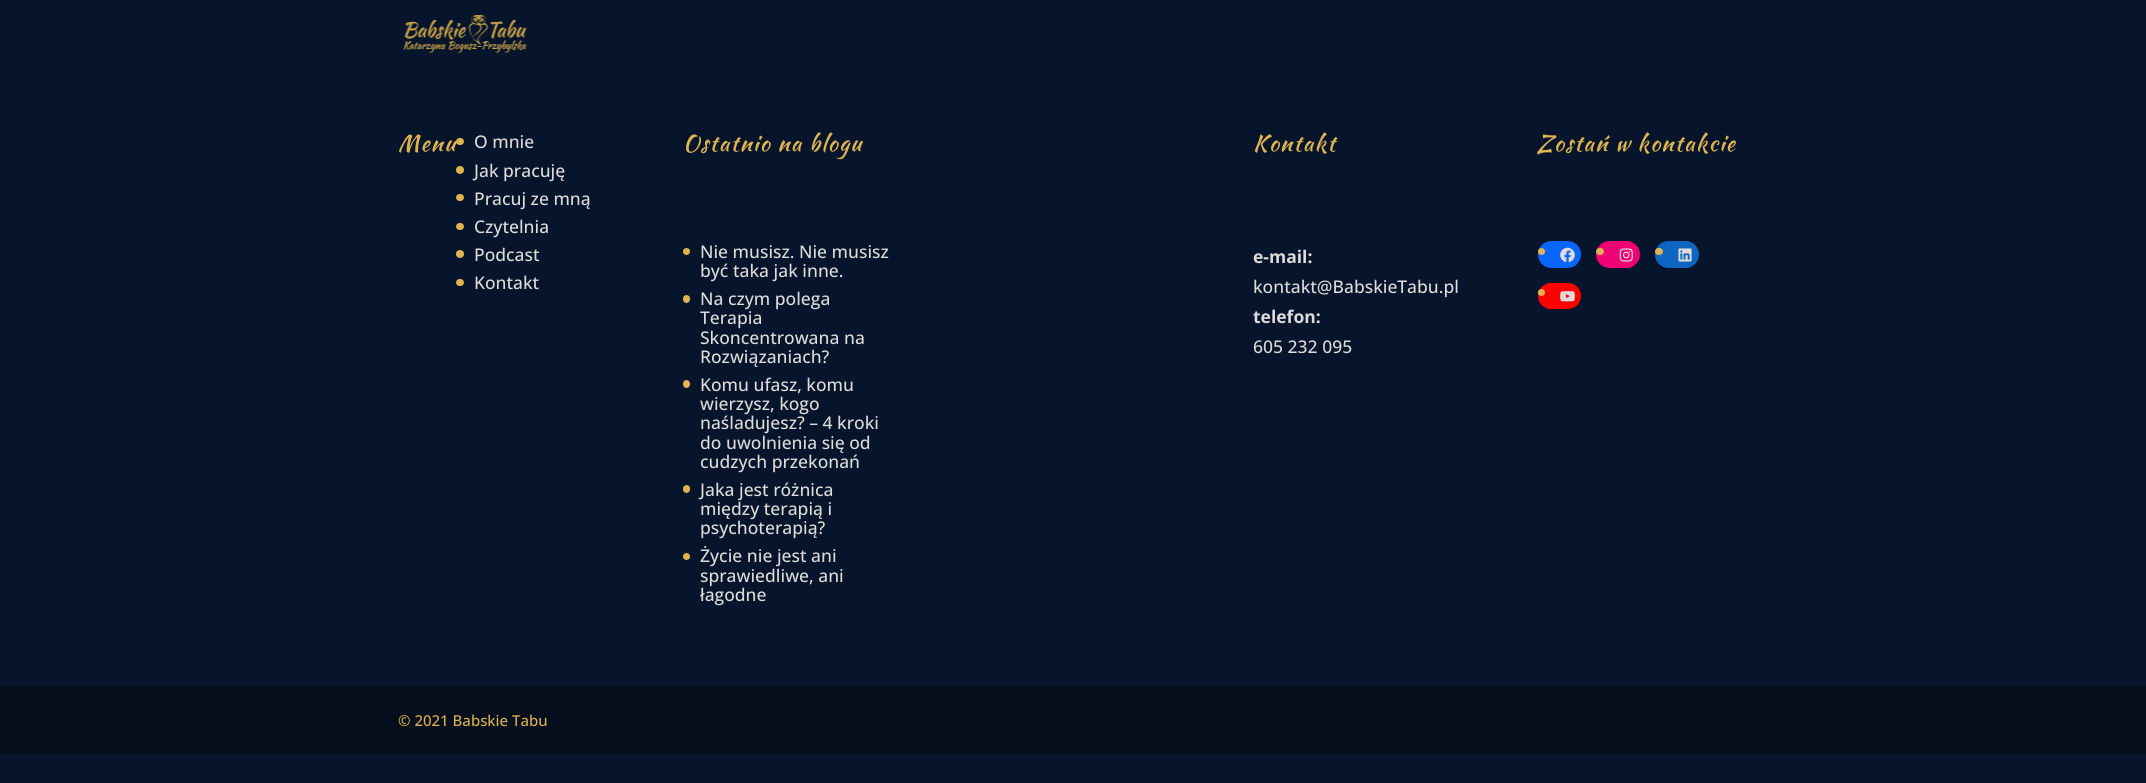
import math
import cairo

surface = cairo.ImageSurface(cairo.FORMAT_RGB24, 2146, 783)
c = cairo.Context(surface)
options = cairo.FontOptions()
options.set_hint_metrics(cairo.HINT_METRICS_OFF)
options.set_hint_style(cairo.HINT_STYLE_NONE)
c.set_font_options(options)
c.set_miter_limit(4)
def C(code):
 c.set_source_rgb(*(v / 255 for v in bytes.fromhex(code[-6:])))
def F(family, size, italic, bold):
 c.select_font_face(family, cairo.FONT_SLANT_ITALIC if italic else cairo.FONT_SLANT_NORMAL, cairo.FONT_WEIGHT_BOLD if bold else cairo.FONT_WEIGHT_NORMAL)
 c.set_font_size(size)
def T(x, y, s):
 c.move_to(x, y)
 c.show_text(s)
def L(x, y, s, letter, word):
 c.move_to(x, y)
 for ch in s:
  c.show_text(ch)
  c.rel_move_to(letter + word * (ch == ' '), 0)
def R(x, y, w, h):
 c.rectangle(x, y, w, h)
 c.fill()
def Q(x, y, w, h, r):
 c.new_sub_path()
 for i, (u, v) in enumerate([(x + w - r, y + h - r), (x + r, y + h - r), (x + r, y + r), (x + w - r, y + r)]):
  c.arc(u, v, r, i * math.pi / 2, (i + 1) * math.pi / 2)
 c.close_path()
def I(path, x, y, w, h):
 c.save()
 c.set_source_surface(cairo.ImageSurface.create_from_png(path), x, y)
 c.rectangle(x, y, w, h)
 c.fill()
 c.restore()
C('06152b')
c.paint()
I('1.png',403,15,124,38)
F('Kaushan Script',22.5,0,0)
C('deb350')
L(398,151,'Menu',1.25,0)
Q(456,138,8,7,3.5)
c.fill()
F('Open Sans Medium',17.5,0,0)
C('dedbd8')
T(474,148,'O mnie')
C('deb350')
c.new_path()
c.arc(460,170,4,0,2 * math.pi)
c.fill()
C('dedbd8')
T(474,177,'Jak pracuję')
C('deb350')
Q(456,194,8,7,3.5)
c.fill()
C('dedbd8')
T(474,205,'Pracuj ze mną')
C('deb350')
Q(456,223,8,7,3.5)
c.fill()
C('dedbd8')
T(474,233,'Czytelnia')
C('deb350')
c.new_path()
c.arc(460,254,4,0,2 * math.pi)
c.fill()
C('dedbd8')
T(474,261,'Podcast')
C('deb350')
Q(456,279,8,7,3.5)
c.fill()
C('dedbd8')
T(474,289,'Kontakt')
F('Kaushan Script',22.5,0,0)
C('deb350')
L(683,151,'Ostatnio na blogu',1.25,0)
c.new_path()
c.arc(686.5,251.5,3.5,0,2 * math.pi)
c.fill()
F('Open Sans Medium',17.5,0,0)
C('dedbd8')
T(700,258,'Nie musisz. Nie musisz')
T(700,277,'być taka jak inne.')
C('deb350')
Q(683,295,7,8,3.5)
c.fill()
C('dedbd8')
T(700,305,'Na czym polega')
T(700,324,'Terapia')
T(700,344,'Skoncentrowana na')
T(700,363,'Rozwiązaniach?')
C('deb350')
Q(683,380,7,8,3.5)
c.fill()
C('dedbd8')
T(700,391,'Komu ufasz, komu')
T(700,410,'wierzysz, kogo')
T(700,429,'naśladujesz? – 4 kroki')
T(700,449,'do uwolnienia się od')
T(700,468,'cudzych przekonań')
C('deb350')
Q(683,485,7,8,3.5)
c.fill()
C('dedbd8')
T(700,496,'Jaka jest różnica')
T(700,515,'między terapią i')
T(700,534,'psychoterapią?')
C('deb350')
c.new_path()
c.arc(686.5,556.5,3.5,0,2 * math.pi)
c.fill()
C('dedbd8')
T(700,562,'Życie nie jest ani')
T(700,582,'sprawiedliwe, ani')
T(700,601,'łagodne')
F('Kaushan Script',22.5,0,0)
C('deb350')
L(1253,151,'Kontakt',1.25,0)
F('Open Sans',17.5,0,1)
C('dedbd8')
T(1253,263,'e-mail:')
F('Open Sans Medium',17.5,0,0)
T(1253,293,'kontakt@BabskieTabu.pl')
F('Open Sans',17.5,0,1)
T(1253,323,'telefon:')
F('Open Sans Medium',17.5,0,0)
T(1253,353,'605 232 095')
F('Kaushan Script',22.5,0,0)
C('deb350')
L(1537,151,'Zostań w kontakcie',1.25,0)
C('0866ff')
Q(1538,241,43,27,13.5)
c.fill()
C('deb350')
c.arc(1541.5,251.5,3.5,0,2 * math.pi)
c.fill()
I('2.png',1560,247,15,16)
C('f00075')
Q(1596,241,44,27,13.5)
c.fill()
C('deb350')
Q(1596,248,8,7,3.5)
c.fill()
I('3.png',1619,248,14,14)
C('0d66c2')
Q(1655,241,44,27,13.5)
c.fill()
C('deb350')
Q(1655,248,8,7,3.5)
c.fill()
I('4.png',1678,248,14,14)
C('ff0000')
Q(1538,283,43,26,13)
c.fill()
C('deb350')
c.arc(1541.5,292.5,3.5,0,2 * math.pi)
c.fill()
I('5.png',1560,291,15,11)
C('040e1d')
R(0,686,2146,68)
F('Open Sans Medium',15,0,0)
C('deb350')
T(398,726,'© 2021 Babskie Tabu')
surface.write_to_png('o.png')
